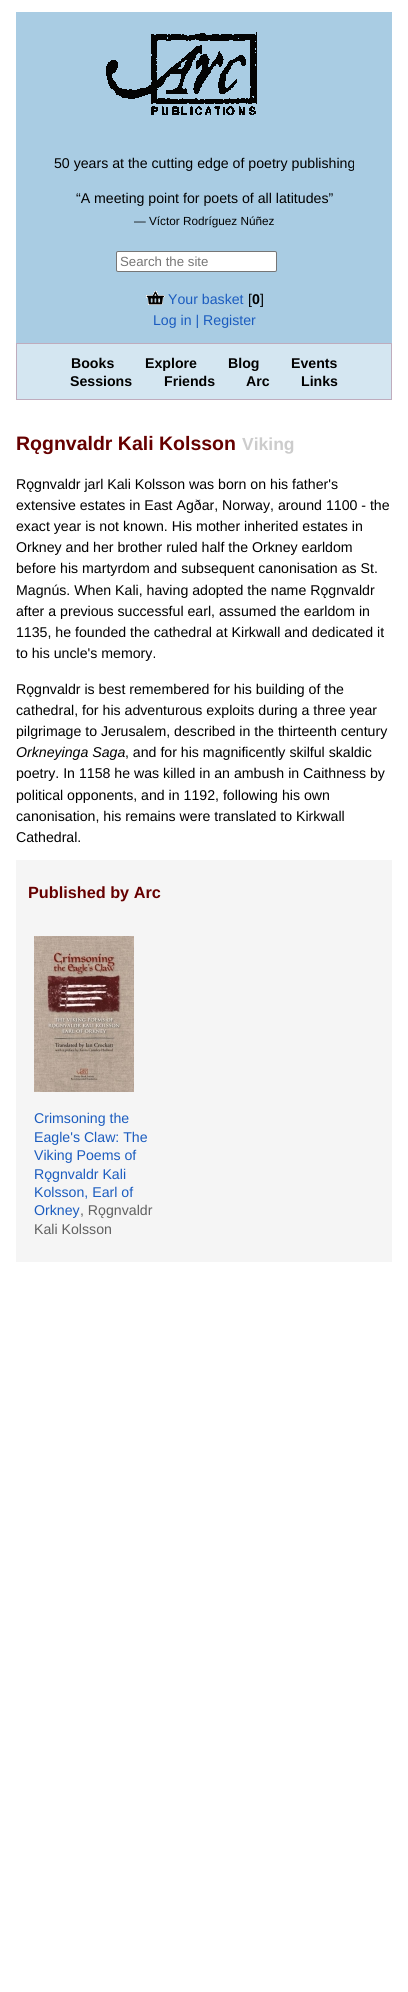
import math
import cairo

surface = cairo.ImageSurface(cairo.FORMAT_RGB24, 408, 1992)
c = cairo.Context(surface)
options = cairo.FontOptions()
options.set_hint_metrics(cairo.HINT_METRICS_OFF)
options.set_hint_style(cairo.HINT_STYLE_NONE)
c.set_font_options(options)
c.set_miter_limit(4)
def C(code):
 c.set_source_rgb(*(v / 255 for v in bytes.fromhex(code[-6:])))
def F(family, size, italic, bold):
 c.select_font_face(family, cairo.FONT_SLANT_ITALIC if italic else cairo.FONT_SLANT_NORMAL, cairo.FONT_WEIGHT_BOLD if bold else cairo.FONT_WEIGHT_NORMAL)
 c.set_font_size(size)
def T(x, y, s):
 c.move_to(x, y)
 c.show_text(s)
def R(x, y, w, h):
 c.rectangle(x, y, w, h)
 c.fill()
def Q(x, y, w, h, r):
 c.new_sub_path()
 for i, (u, v) in enumerate([(x + w - r, y + h - r), (x + r, y + h - r), (x + r, y + r), (x + w - r, y + r)]):
  c.arc(u, v, r, i * math.pi / 2, (i + 1) * math.pi / 2)
 c.close_path()
def I(path, x, y, w, h):
 c.save()
 c.set_source_surface(cairo.ImageSurface.create_from_png(path), x, y)
 c.rectangle(x, y, w, h)
 c.fill()
 c.restore()
C('ffffff')
c.paint()
C('a9cce3')
R(16,12,376,331)
I('1.png',106,32,151,83)
F('Liberation Sans',14.15,0,0)
C('000000')
T(54,168,'50 years at the cutting edge of poetry publishing')
T(76,203,'“A meeting point for poets of all latitudes”')
F('Liberation Sans',11.75,0,0)
T(134,225,'— Víctor Rodríguez Núñez')
C('ffffff')
Q(116.5,251.5,160,20,1.5)
c.fill_preserve()
C('767676')
c.set_line_width(1)
c.stroke()
F('Liberation Sans',13.25,0,0)
C('757575')
T(120,266,'Search the site')
I('2.png',146,291,19,14)
F('Liberation Sans',14.15,0,0)
C('1b5cbf')
T(168,304,'Your basket')
C('000000')
T(248,304,'[')
F('Liberation Sans',14.15,0,1)
T(252,304,'0')
F('Liberation Sans',14.15,0,0)
T(260,304,']')
C('1b5cbf')
T(153,325,'Log in | Register')
C('d4e6f1')
c.rectangle(16.5,343.5,375,56)
c.fill_preserve()
C('bfacbd')
c.stroke()
F('Liberation Sans',14.15,0,1)
C('000000')
T(71,368,'Books')
T(145,368,'Explore')
T(228,368,'Blog')
T(291,368,'Events')
T(70,386,'Sessions')
T(164,386,'Friends')
T(246,386,'Arc')
T(301,386,'Links')
F('Liberation Sans',19.5,0,1)
C('660000')
T(16,450,'Rǫgnvaldr Kali Kolsson')
F('Liberation Sans',17.5,0,1)
C('cccccc')
T(242,450,'Viking')
F('Liberation Sans',14.15,0,0)
C('000000')
T(16,489,'Rǫgnvaldr jarl Kali Kolsson was born on his father\'s')
T(16,510,'extensive estates in East Agðar, Norway, around 1100 - the')
T(16,531,'exact year is not known. His mother inherited estates in')
T(16,552,'Orkney and her brother ruled half the Orkney earldom')
T(16,573,'before his martyrdom and subsequent canonisation as St.')
T(16,595,'Magnús. When Kali, having adopted the name Rǫgnvaldr')
T(16,616,'after a previous successful earl, assumed the earldom in')
T(16,637,'1135, he founded the cathedral at Kirkwall and dedicated it')
T(16,658,'to his uncle\'s memory.')
T(16,694,'Rǫgnvaldr is best remembered for his building of the')
T(16,715,'cathedral, for his adventurous exploits during a three year')
T(16,736,'pilgrimage to Jerusalem, described in the thirteenth century')
F('Liberation Sans',14.15,1,0)
T(16,757,'Orkneyinga Saga')
F('Liberation Sans',14.15,0,0)
T(125,757,', and for his magnificently skilful skaldic')
T(16,778,'poetry. In 1158 he was killed in an ambush in Caithness by')
T(16,800,'political opponents, and in 1192, following his own')
T(16,821,'canonisation, his remains were translated to Kirkwall')
T(16,842,'Cathedral.')
C('f5f5f5')
R(16,860,376,402)
F('Liberation Sans',16.25,0,1)
C('660000')
T(28,898,'Published by Arc')
I('3.png',34,936,100,156)
F('Liberation Sans',14.15,0,0)
C('1b5cbf')
T(34,1123,'Crimsoning the')
T(34,1142,'Eagle\'s Claw: The')
T(34,1160,'Viking Poems of')
T(34,1179,'Rǫgnvaldr Kali')
T(34,1197,'Kolsson, Earl of')
T(34,1215,'Orkney')
C('606060')
T(80,1215,', Rǫgnvaldr')
T(34,1234,'Kali Kolsson')
surface.write_to_png('o.png')
